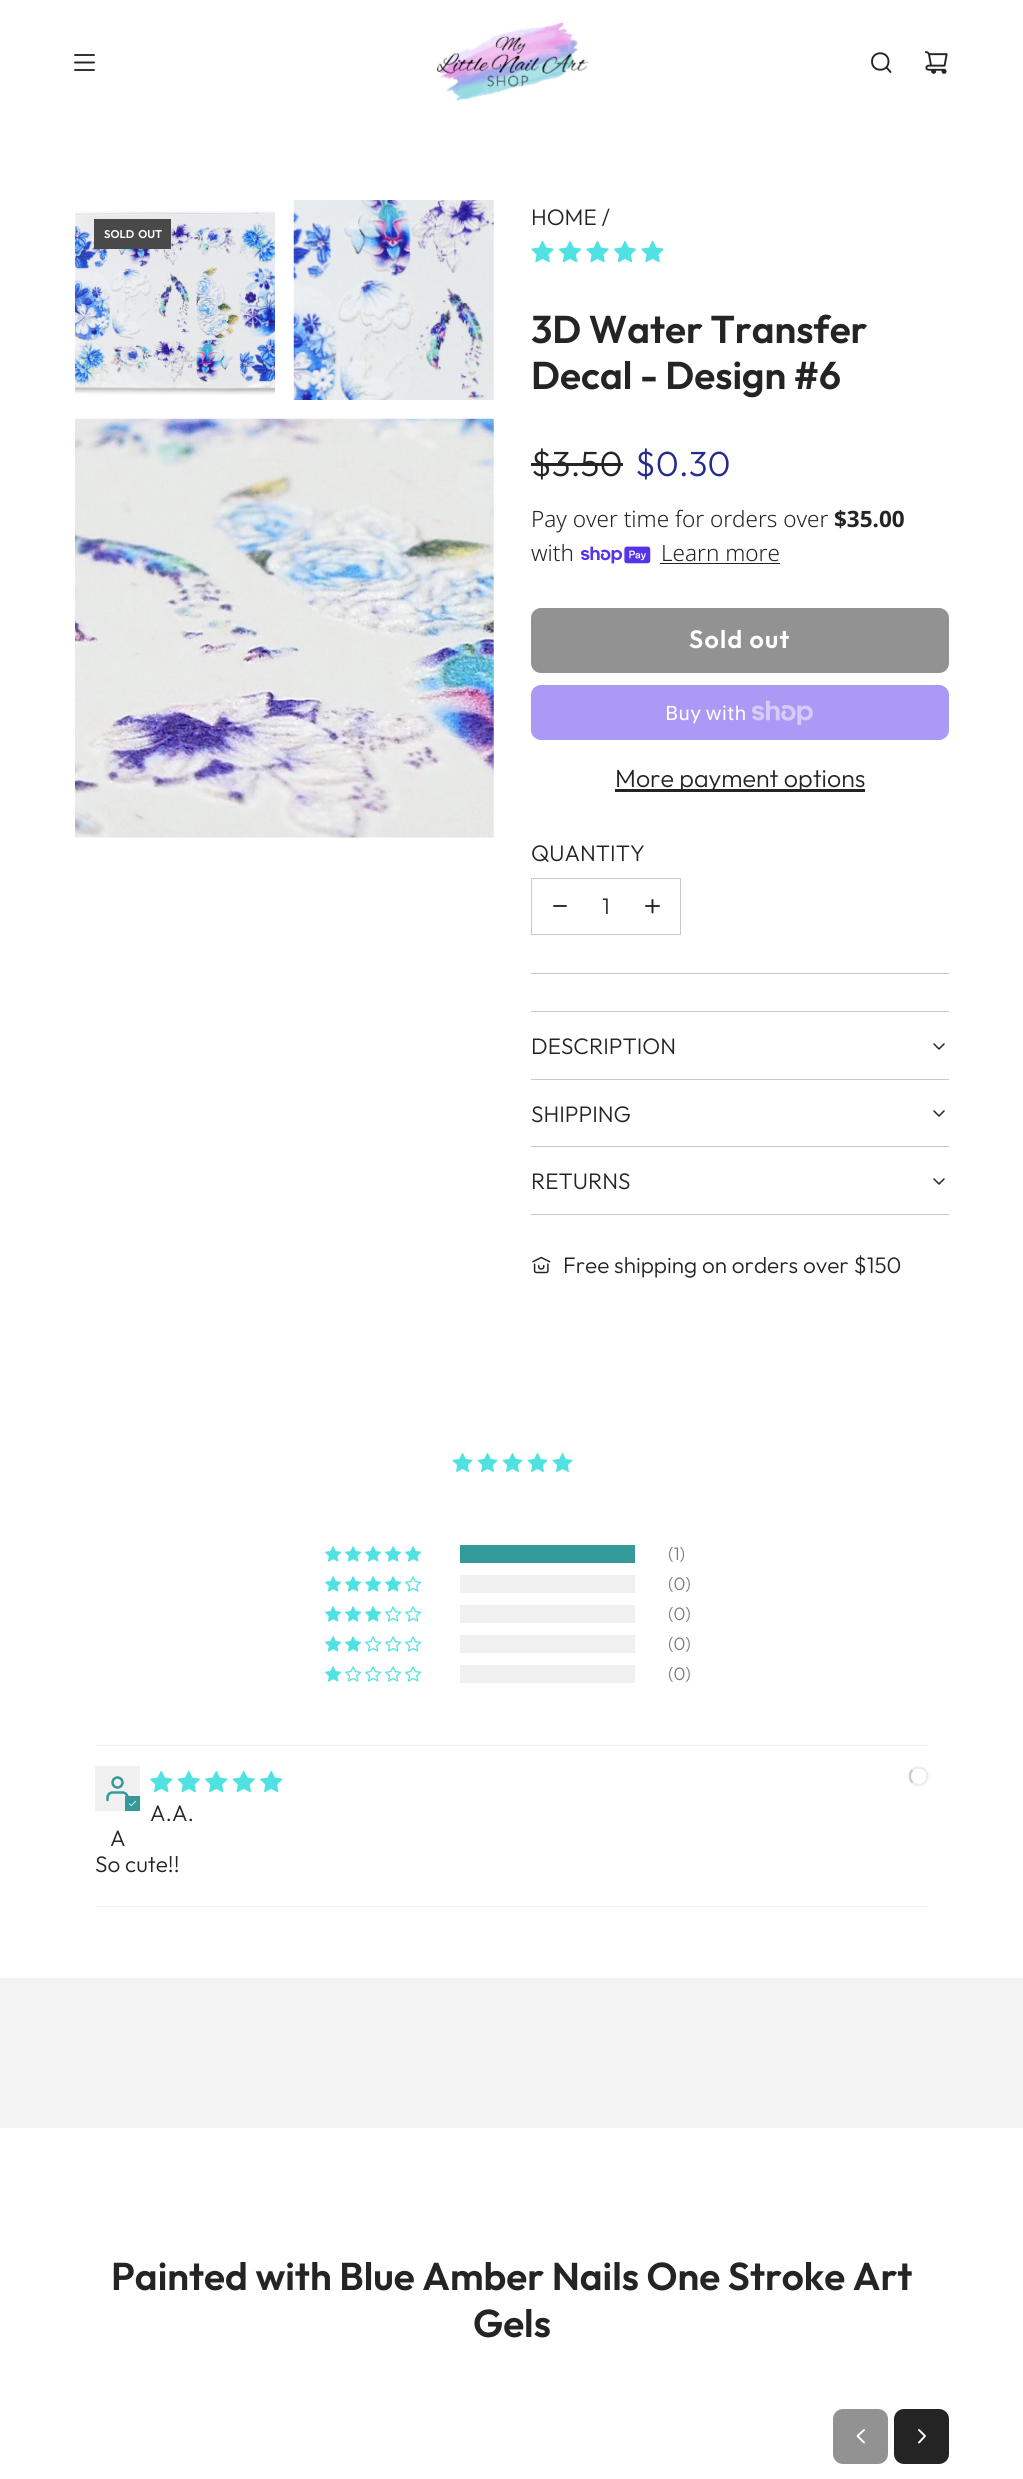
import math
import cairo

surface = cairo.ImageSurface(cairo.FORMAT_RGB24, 1023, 2479)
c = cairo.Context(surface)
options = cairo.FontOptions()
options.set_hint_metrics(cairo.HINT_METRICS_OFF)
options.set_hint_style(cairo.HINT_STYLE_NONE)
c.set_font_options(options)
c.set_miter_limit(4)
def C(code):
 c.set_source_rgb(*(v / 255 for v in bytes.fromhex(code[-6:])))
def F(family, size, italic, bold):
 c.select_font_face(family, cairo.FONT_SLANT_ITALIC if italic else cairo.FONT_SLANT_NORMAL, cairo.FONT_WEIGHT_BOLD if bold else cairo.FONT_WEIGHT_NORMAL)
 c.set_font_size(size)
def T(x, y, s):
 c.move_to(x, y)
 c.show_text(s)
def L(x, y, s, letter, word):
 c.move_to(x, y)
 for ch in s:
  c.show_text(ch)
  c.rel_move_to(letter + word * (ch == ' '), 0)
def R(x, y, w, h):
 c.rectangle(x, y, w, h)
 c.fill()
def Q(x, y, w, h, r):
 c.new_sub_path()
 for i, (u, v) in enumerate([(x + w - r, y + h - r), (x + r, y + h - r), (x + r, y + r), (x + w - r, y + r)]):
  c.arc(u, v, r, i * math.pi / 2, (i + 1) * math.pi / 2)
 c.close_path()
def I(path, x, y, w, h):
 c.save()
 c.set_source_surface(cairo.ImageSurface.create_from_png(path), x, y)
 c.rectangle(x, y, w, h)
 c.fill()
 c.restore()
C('ffffff')
c.paint()
c.new_path()
c.move_to(75,55)
c.line_to(94,55)
c.move_to(75,62.5)
c.line_to(94,62.5)
c.move_to(75,70)
c.line_to(94,70)
C('242424')
c.set_line_width(1.9)
c.set_line_cap(cairo.LINE_CAP_ROUND)
c.set_line_join(cairo.LINE_JOIN_ROUND)
c.stroke()
I('1.png',437,22,152,79)
c.new_path()
c.move_to(886.5,67.5)
c.line_to(890.5,72)
c.move_to(872,61.5)
c.curve_to(872,72.5,888.5,72.5,888.5,61.5)
c.curve_to(888.5,50.5,872,50.5,872,61.5)
c.close_path()
c.stroke()
I('2.png',924,51,24,23)
I('3.png',75,211,200,184)
I('4.png',293,200,201,200)
I('5.png',75,418,419,420)
C('494949')
R(94,219,77,30)
F('Outfit SemiBold',11.25,0,0)
C('ffffff')
L(104,238,'SOLD OUT',0,2)
F('Outfit Light',22.5,0,0)
C('242424')
T(531,225,'HOME /')
I('6.png',531,240,23,23)
I('7.png',558,240,24,23)
I('6.png',586,240,23,23)
I('7.png',613,240,24,23)
I('6.png',641,240,23,23)
F('Outfit SemiBold',38.75,0,0)
T(531,343,'3D Water Transfer')
T(531,389,'Decal - Design #6')
F('Outfit Light',35,0,0)
T(531,476,'$3.50')
R(531,463,92,3)
C('242b8b')
T(635,476,'$0.30')
F('Noto Sans Light',22.5,0,0)
C('242424')
T(531,527,'Pay over time for orders over')
F('Noto Sans',22.5,0,1)
T(834,527,'$35.00')
F('Noto Sans Light',22.5,0,0)
T(531,561,'with')
I('8.png',581,546,70,18)
T(661,561,'Learn more')
R(660,563,120,1)
C('929292')
Q(531,608,418,65,10)
c.fill()
F('Outfit SemiBold',25,0,0)
C('ffffff')
L(689,648,'Sold out',1.25,0)
C('aa99f5')
Q(531,685,418,55,10)
c.fill()
F('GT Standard',20,0,0)
C('ffffff')
T(665,720,'Buy with')
I('9.png',752,700,61,25)
C('242424')
R(615,789,250,3)
F('Outfit Light',25,0,0)
T(615,787,'More payment options')
F('Outfit Light',22.5,0,0)
T(531,861,'QUANTITY')
c.rectangle(531.5,878.5,149,56)
C('c8c8c8')
c.set_line_width(1)
c.set_line_cap(cairo.LINE_CAP_BUTT)
c.set_line_join(cairo.LINE_JOIN_MITER)
c.stroke()
c.new_path()
c.move_to(554,906)
c.line_to(566,906)
C('242424')
c.set_line_width(1.9)
c.set_line_cap(cairo.LINE_CAP_ROUND)
c.set_line_join(cairo.LINE_JOIN_ROUND)
c.stroke()
T(602,914,'1')
c.new_path()
c.move_to(646,906)
c.line_to(652.5,906)
c.move_to(652.5,906)
c.line_to(659,906)
c.move_to(652.5,906)
c.line_to(652.5,900)
c.move_to(652.5,906)
c.line_to(652.5,912.5)
c.stroke()
C('c8c8c8')
R(531,973,418,1)
R(531,1011,418,1)
R(531,1079,418,1)
C('242424')
T(531,1054,'DESCRIPTION')
c.new_path()
c.move_to(934,1044)
c.line_to(939,1049)
c.line_to(944,1044)
c.set_line_width(1.5)
c.stroke()
C('c8c8c8')
R(531,1146,418,1)
C('242424')
T(531,1122,'SHIPPING')
c.new_path()
c.move_to(934,1111)
c.line_to(939,1116)
c.line_to(944,1111)
c.stroke()
C('c8c8c8')
R(531,1214,418,1)
C('242424')
T(531,1189,'RETURNS')
c.new_path()
c.move_to(934,1179)
c.line_to(939,1184)
c.line_to(944,1179)
c.stroke()
I('10.png',532,1256,19,18)
T(563,1273,'Free shipping on orders over $150')
I('11.png',452,1453,21,19)
I('11.png',477,1453,21,19)
I('11.png',502,1453,21,19)
I('11.png',527,1453,21,19)
I('11.png',552,1453,21,19)
I('12.png',325,1546,17,16)
I('12.png',345,1546,17,16)
I('12.png',365,1546,17,16)
I('12.png',385,1546,17,16)
I('12.png',405,1546,17,16)
C('339999')
R(460,1545,175,18)
F('Outfit Light',18,0,0)
C('7b7b7b')
T(668,1560,'(1)')
I('12.png',325,1576,17,16)
I('12.png',345,1576,17,16)
I('12.png',365,1576,17,16)
I('12.png',385,1576,17,16)
I('13.png',405,1576,17,16)
C('f0f0f0')
R(460,1575,175,18)
C('7b7b7b')
T(668,1590,'(0)')
I('12.png',325,1606,17,16)
I('12.png',345,1606,17,16)
I('12.png',365,1606,17,16)
I('13.png',385,1606,17,16)
I('13.png',405,1606,17,16)
C('f0f0f0')
R(460,1605,175,18)
C('7b7b7b')
T(668,1620,'(0)')
I('12.png',325,1636,17,16)
I('12.png',345,1636,17,16)
I('13.png',365,1636,17,16)
I('13.png',385,1636,17,16)
I('13.png',405,1636,17,16)
C('f0f0f0')
R(460,1635,175,18)
C('7b7b7b')
T(668,1650,'(0)')
I('12.png',325,1666,17,16)
I('13.png',345,1666,17,16)
I('13.png',365,1666,17,16)
I('13.png',385,1666,17,16)
I('13.png',405,1666,17,16)
C('f0f0f0')
R(460,1665,175,18)
C('7b7b7b')
T(668,1680,'(0)')
C('ebf5f5')
R(95,1745,834,1)
I('14.png',150,1770,23,23)
I('15.png',177,1770,23,23)
I('14.png',205,1770,23,23)
I('15.png',232,1770,23,23)
I('14.png',260,1770,23,23)
c.new_path()
c.move_to(912.5,1770)
c.curve_to(914.5,1768,917.5,1767,920.5,1767.5)
c.curve_to(930.5,1769.5,929,1785,919,1785)
c.curve_to(916.5,1785,914,1784,912.5,1782.5)
C('eeeeee')
c.set_line_width(2.5)
c.set_line_cap(cairo.LINE_CAP_BUTT)
c.set_line_join(cairo.LINE_JOIN_MITER)
c.stroke()
c.new_path()
c.move_to(912.5,1782.5)
c.curve_to(909,1779,909,1773.5,912.5,1770)
C('cccccc')
c.stroke()
F('Outfit Light',22.5,0,0)
C('242424')
T(150,1821,'A.A.')
C('f0f0f0')
R(95,1766,45,45)
I('16.png',106,1776,23,26)
C('339999')
R(125,1796,15,15)
I('17.png',129,1800,8,7)
C('242424')
T(110,1846,'A')
T(95,1872,'So cute!!')
C('ebf5f5')
R(95,1906,834,1)
C('f3f3f3')
R(0,1978,1023,150)
F('Outfit SemiBold',38.75,0,0)
C('242424')
T(111,2290,'Painted with Blue Amber Nails One Stroke Art')
T(473,2337,'Gels')
C('929292')
Q(833,2409,55,55,10)
c.fill()
c.new_path()
c.move_to(864,2430)
c.line_to(857.5,2436)
c.line_to(864,2442.5)
C('ffffff')
c.set_line_width(1.9)
c.set_line_cap(cairo.LINE_CAP_ROUND)
c.set_line_join(cairo.LINE_JOIN_ROUND)
c.stroke()
C('242424')
Q(894,2409,55,55,10)
c.fill()
c.new_path()
c.move_to(919,2430)
c.line_to(925,2436)
c.line_to(919,2442.5)
C('ffffff')
c.stroke()
surface.write_to_png('o.png')
